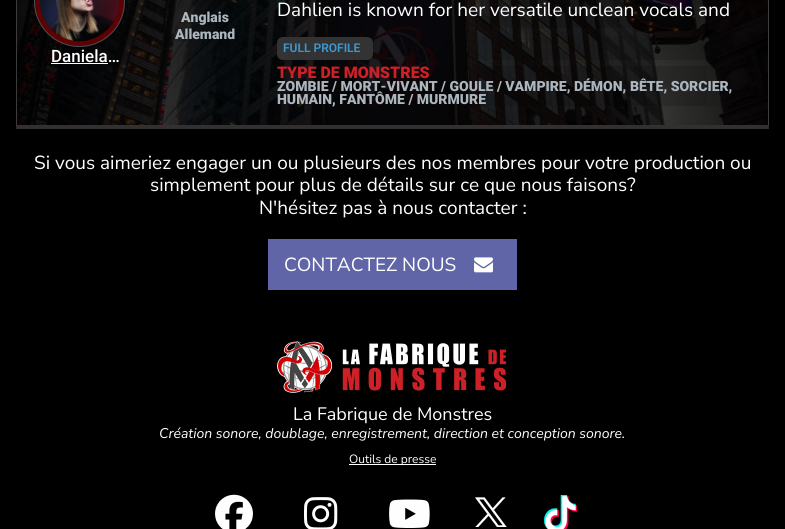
import math
import cairo

surface = cairo.ImageSurface(cairo.FORMAT_RGB24, 785, 529)
c = cairo.Context(surface)
options = cairo.FontOptions()
options.set_hint_metrics(cairo.HINT_METRICS_OFF)
options.set_hint_style(cairo.HINT_STYLE_NONE)
c.set_font_options(options)
c.set_miter_limit(4)
def C(code):
 c.set_source_rgb(*(v / 255 for v in bytes.fromhex(code[-6:])))
def F(family, size, italic, bold):
 c.select_font_face(family, cairo.FONT_SLANT_ITALIC if italic else cairo.FONT_SLANT_NORMAL, cairo.FONT_WEIGHT_BOLD if bold else cairo.FONT_WEIGHT_NORMAL)
 c.set_font_size(size)
def T(x, y, s):
 c.move_to(x, y)
 c.show_text(s)
def R(x, y, w, h):
 c.rectangle(x, y, w, h)
 c.fill()
def Q(x, y, w, h, r):
 c.new_sub_path()
 for i, (u, v) in enumerate([(x + w - r, y + h - r), (x + r, y + h - r), (x + r, y + r), (x + w - r, y + r)]):
  c.arc(u, v, r, i * math.pi / 2, (i + 1) * math.pi / 2)
 c.close_path()
def I(path, x, y, w, h):
 c.save()
 c.set_source_surface(cairo.ImageSurface.create_from_png(path), x, y)
 c.rectangle(x, y, w, h)
 c.fill()
 c.restore()
C('000000')
c.paint()
I('1.png',16,0,753,129)
C('3e3d3d')
c.new_path()
c.move_to(769,-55)
c.line_to(769,129)
c.line_to(768,125)
c.line_to(768,-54)
c.close_path()
c.fill()
C('353030')
c.new_path()
c.move_to(769,129)
c.line_to(16,129)
c.line_to(17,125)
c.line_to(768,125)
c.close_path()
c.fill()
C('3c3c3c')
c.new_path()
c.move_to(16,129)
c.line_to(16,-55)
c.line_to(17,-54)
c.line_to(17,125)
c.close_path()
c.fill()
c.set_source_rgba(0,0,0,0.08)
R(142,0,125,125)
R(176,0,60,7)
R(174,7,19,17)
R(177,0,7,8)
R(172,24,18,17)
R(181,9,5,16)
F('Roboto Black',14,0,0)
C('acb6be')
T(181,22,'Anglais')
c.set_source_rgba(0,0,0,0.08)
R(175,26,12,16)
C('acb6be')
T(175,39,'Allemand')
c.set_source_rgba(0,0,0,0.08)
R(282,0,440,125)
R(283,0,425,60)
R(475,0,225,28)
R(476,0,220,28)
F('Nunito Sans',19,0,0)
C('ffffff')
T(277,16,'Dahlien is known for her versatile unclean vocals and')
c.set_source_rgba(0,0,0,0.08)
R(478,37,227,23)
C('333333')
Q(277,37,96,23,6)
c.fill()
F('Roboto SemiBold',12,0,0)
C('3c99d6')
T(283,52,'FULL PROFILE')
c.set_source_rgba(0,0,0,0.08)
R(299,66,418,40)
R(480,66,226,14)
F('Roboto Black',16,0,0)
C('cd2027')
T(277,78,'TYPE DE MONSTRES')
c.set_source_rgba(0,0,0,0.08)
R(299,80,408,26)
F('Roboto Black',14,0,0)
C('acb6be')
T(277,91,'ZOMBIE / MORT-VIVANT / GOULE / VAMPIRE, DÉMON, BÊTE, SORCIER,')
T(277,104,'HUMAIN, FANTÔME / MURMURE')
c.set_source_rgba(0,0,0,0.08)
R(35,1,107,124)
R(39,15,94,29)
C('5d0102')
c.new_path()
c.arc(79.5,1.5,45,0,2 * math.pi)
c.fill_preserve()
C('495057')
c.set_line_width(1)
c.stroke()
I('2.png',40,0,80,42)
c.set_source_rgba(0,0,0,0.08)
R(53,48,77,17)
R(127,48,3,17)
F('Roboto Medium',17,0,0)
C('ffffff')
T(51,62,'Daniela…')
R(51,63,57,1)
F('Nunito Sans',19,0,0)
T(34,169,'Si vous aimeriez engager un ou plusieurs des nos membres pour votre production ou')
T(150,191,'simplement pour plus de détails sur ce que nous faisons?')
T(259,214,'N\'hésitez pas à nous contacter :')
C('5f65a7')
R(268,239,249,51)
C('ffffff')
T(284,271,'CONTACTEZ NOUS')
I('3.png',474,257,19,16)
I('4.png',277,340,230,53)
F('Nunito Sans',18,0,0)
T(293,420,'La Fabrique de Monstres')
F('Nunito Sans',14,1,0)
T(159,438,'Création sonore, doublage, enregistrement, direction et conception sonore.')
R(349,464,87,1)
F('Nunito Sans',12,0,0)
T(349,463,'Outils de presse')
I('5.png',215,494,38,35)
I('6.png',304,497,34,32)
I('7.png',389,499,41,29)
I('8.png',475,497,32,30)
I('9.png',544,495,33,34)
surface.write_to_png('o.png')
